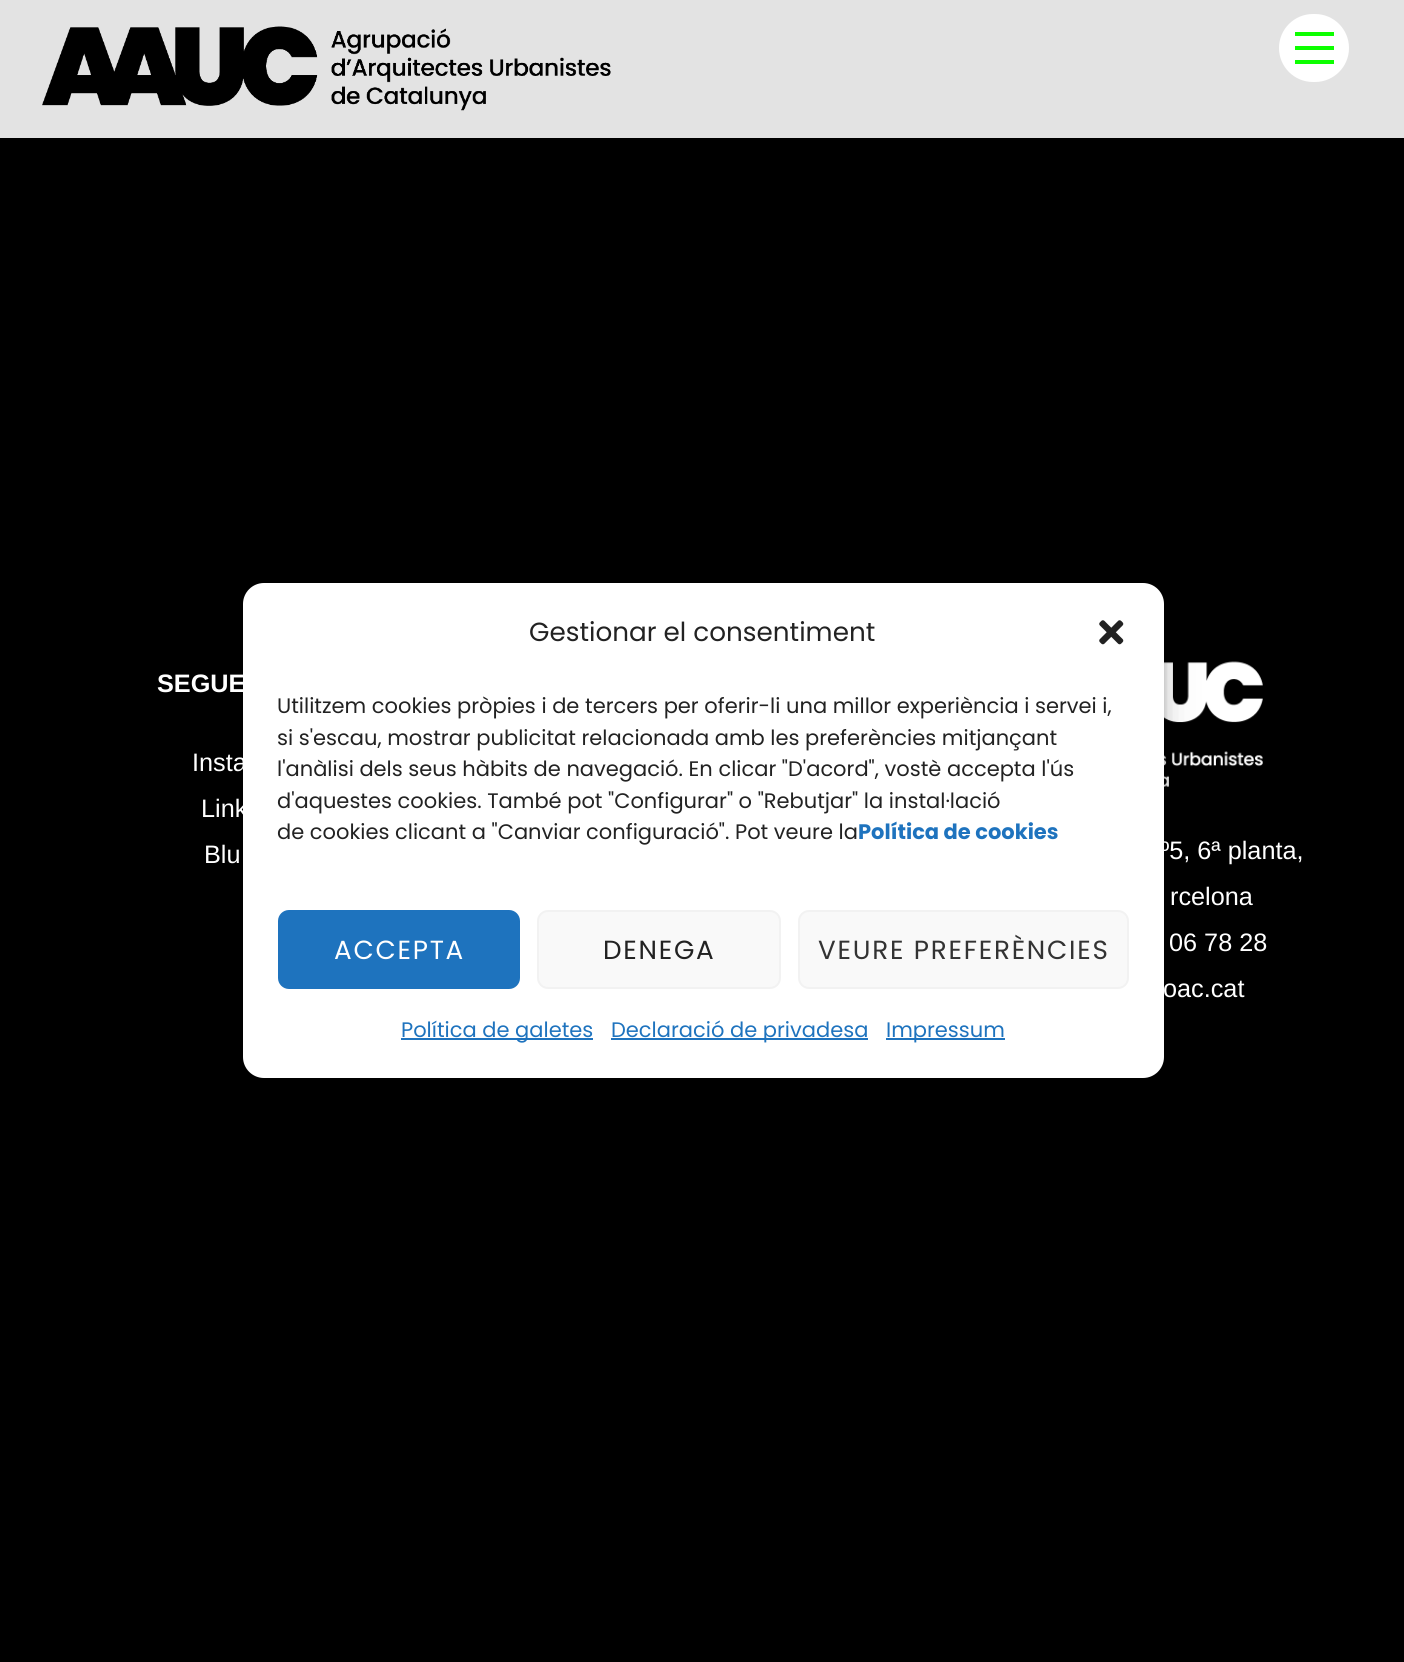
import math
import cairo

surface = cairo.ImageSurface(cairo.FORMAT_RGB24, 1404, 1662)
c = cairo.Context(surface)
options = cairo.FontOptions()
options.set_hint_metrics(cairo.HINT_METRICS_OFF)
options.set_hint_style(cairo.HINT_STYLE_NONE)
c.set_font_options(options)
c.set_miter_limit(4)
def C(code):
 c.set_source_rgb(*(v / 255 for v in bytes.fromhex(code[-6:])))
def F(family, size, italic, bold):
 c.select_font_face(family, cairo.FONT_SLANT_ITALIC if italic else cairo.FONT_SLANT_NORMAL, cairo.FONT_WEIGHT_BOLD if bold else cairo.FONT_WEIGHT_NORMAL)
 c.set_font_size(size)
def T(x, y, s):
 c.move_to(x, y)
 c.show_text(s)
def L(x, y, s, letter, word):
 c.move_to(x, y)
 for ch in s:
  c.show_text(ch)
  c.rel_move_to(letter + word * (ch == ' '), 0)
def R(x, y, w, h):
 c.rectangle(x, y, w, h)
 c.fill()
def Q(x, y, w, h, r):
 c.new_sub_path()
 for i, (u, v) in enumerate([(x + w - r, y + h - r), (x + r, y + h - r), (x + r, y + r), (x + w - r, y + r)]):
  c.arc(u, v, r, i * math.pi / 2, (i + 1) * math.pi / 2)
 c.close_path()
def S(x, y, w, h, r, blur, alpha):
 c.push_group_with_content(cairo.CONTENT_ALPHA)
 c.set_operator(cairo.OPERATOR_SOURCE)
 for i in range(15, -16, -2):
  e = blur * i / 6
  if min(w, h) + 2 * e > 0:
   c.set_source_rgba(0, 0, 0, alpha * math.erfc((i - 1) / 8.5) / 2)
   Q(x - e, y - e, w + 2 * e, h + 2 * e, max(0, min(r + e + blur * .6, min(w, h) / 2 + e)))
   c.fill()
 c.mask(c.pop_group())
def I(path, x, y, w, h):
 c.save()
 c.set_source_surface(cairo.ImageSurface.create_from_png(path), x, y)
 c.rectangle(x, y, w, h)
 c.fill()
 c.restore()
C('000000')
c.paint()
I('3.png',1164,661,99,131)
S(243,593,921,496,21,5,.23)
S(243,600,921,496,21,17.5,.19)
C('ffffff')
Q(243,583,921,495,21)
c.fill()
F('Poppins',26.25,0,0)
C('222222')
T(529,641,'Gestionar el consentiment')
I('1.png',1099,620,25,25)
F('Poppins',21,0,0)
T(277,713,'Utilitzem cookies pròpies i de tercers per oferir-li una millor experiència i servei i,')
T(277,745,'si s\'escau, mostrar publicitat relacionada amb les preferències mitjançant')
T(277,776,'l\'anàlisi dels seus hàbits de navegació. En clicar "D\'acord", vostè accepta l\'ús')
T(277,808,'d\'aquestes cookies. També pot "Configurar" o "Rebutjar" la instal·lació')
T(277,839,'de cookies clicant a "Canviar configuració". Pot veure la')
F('Poppins',21,0,1)
C('1e73be')
T(858,839,'Política de cookies')
Q(279,911,240,77,10)
c.fill_preserve()
c.stroke()
F('Poppins',26.25,0,0)
C('ffffff')
L(334,959,'ACCEPTA',1.75,0)
C('f9f9f9')
Q(538,911,242,77,10)
c.fill_preserve()
C('f2f2f2')
c.stroke()
C('222222')
L(603,959,'DENEGA',1.75,0)
C('f9f9f9')
Q(799,911,329,77,10)
c.fill_preserve()
C('f2f2f2')
c.stroke()
C('333333')
L(818,959,'VEURE PREFERÈNCIES',1.75,0)
C('1e73be')
R(401,1038,192,2)
F('Poppins',21,0,0)
T(401,1037,'Política de galetes')
R(611,1038,257,2)
T(611,1037,'Declaració de privadesa')
R(886,1038,119,2)
T(886,1037,'Impressum')
C('e3e3e3')
R(0,0,1404,138)
I('2.png',42,26,569,85)
C('ffffff')
Q(1279,14,70,68,34)
c.fill()
C('0dff00')
R(1295,60,39,4)
R(1295,32,39,4)
R(1295,46,39,4)
F('Liberation Sans',25.25,0,1)
C('ffffff')
T(157,692,'SEGUE')
F('Liberation Sans',25.25,0,0)
T(192,771,'Insta')
T(201,817,'Link')
T(204,863,'Blu')
T(1160,859,'º5, 6ª planta,')
T(1170,905,'rcelona')
T(1169,951,'06 78 28')
T(1163,997,'oac.cat')
surface.write_to_png('o.png')
